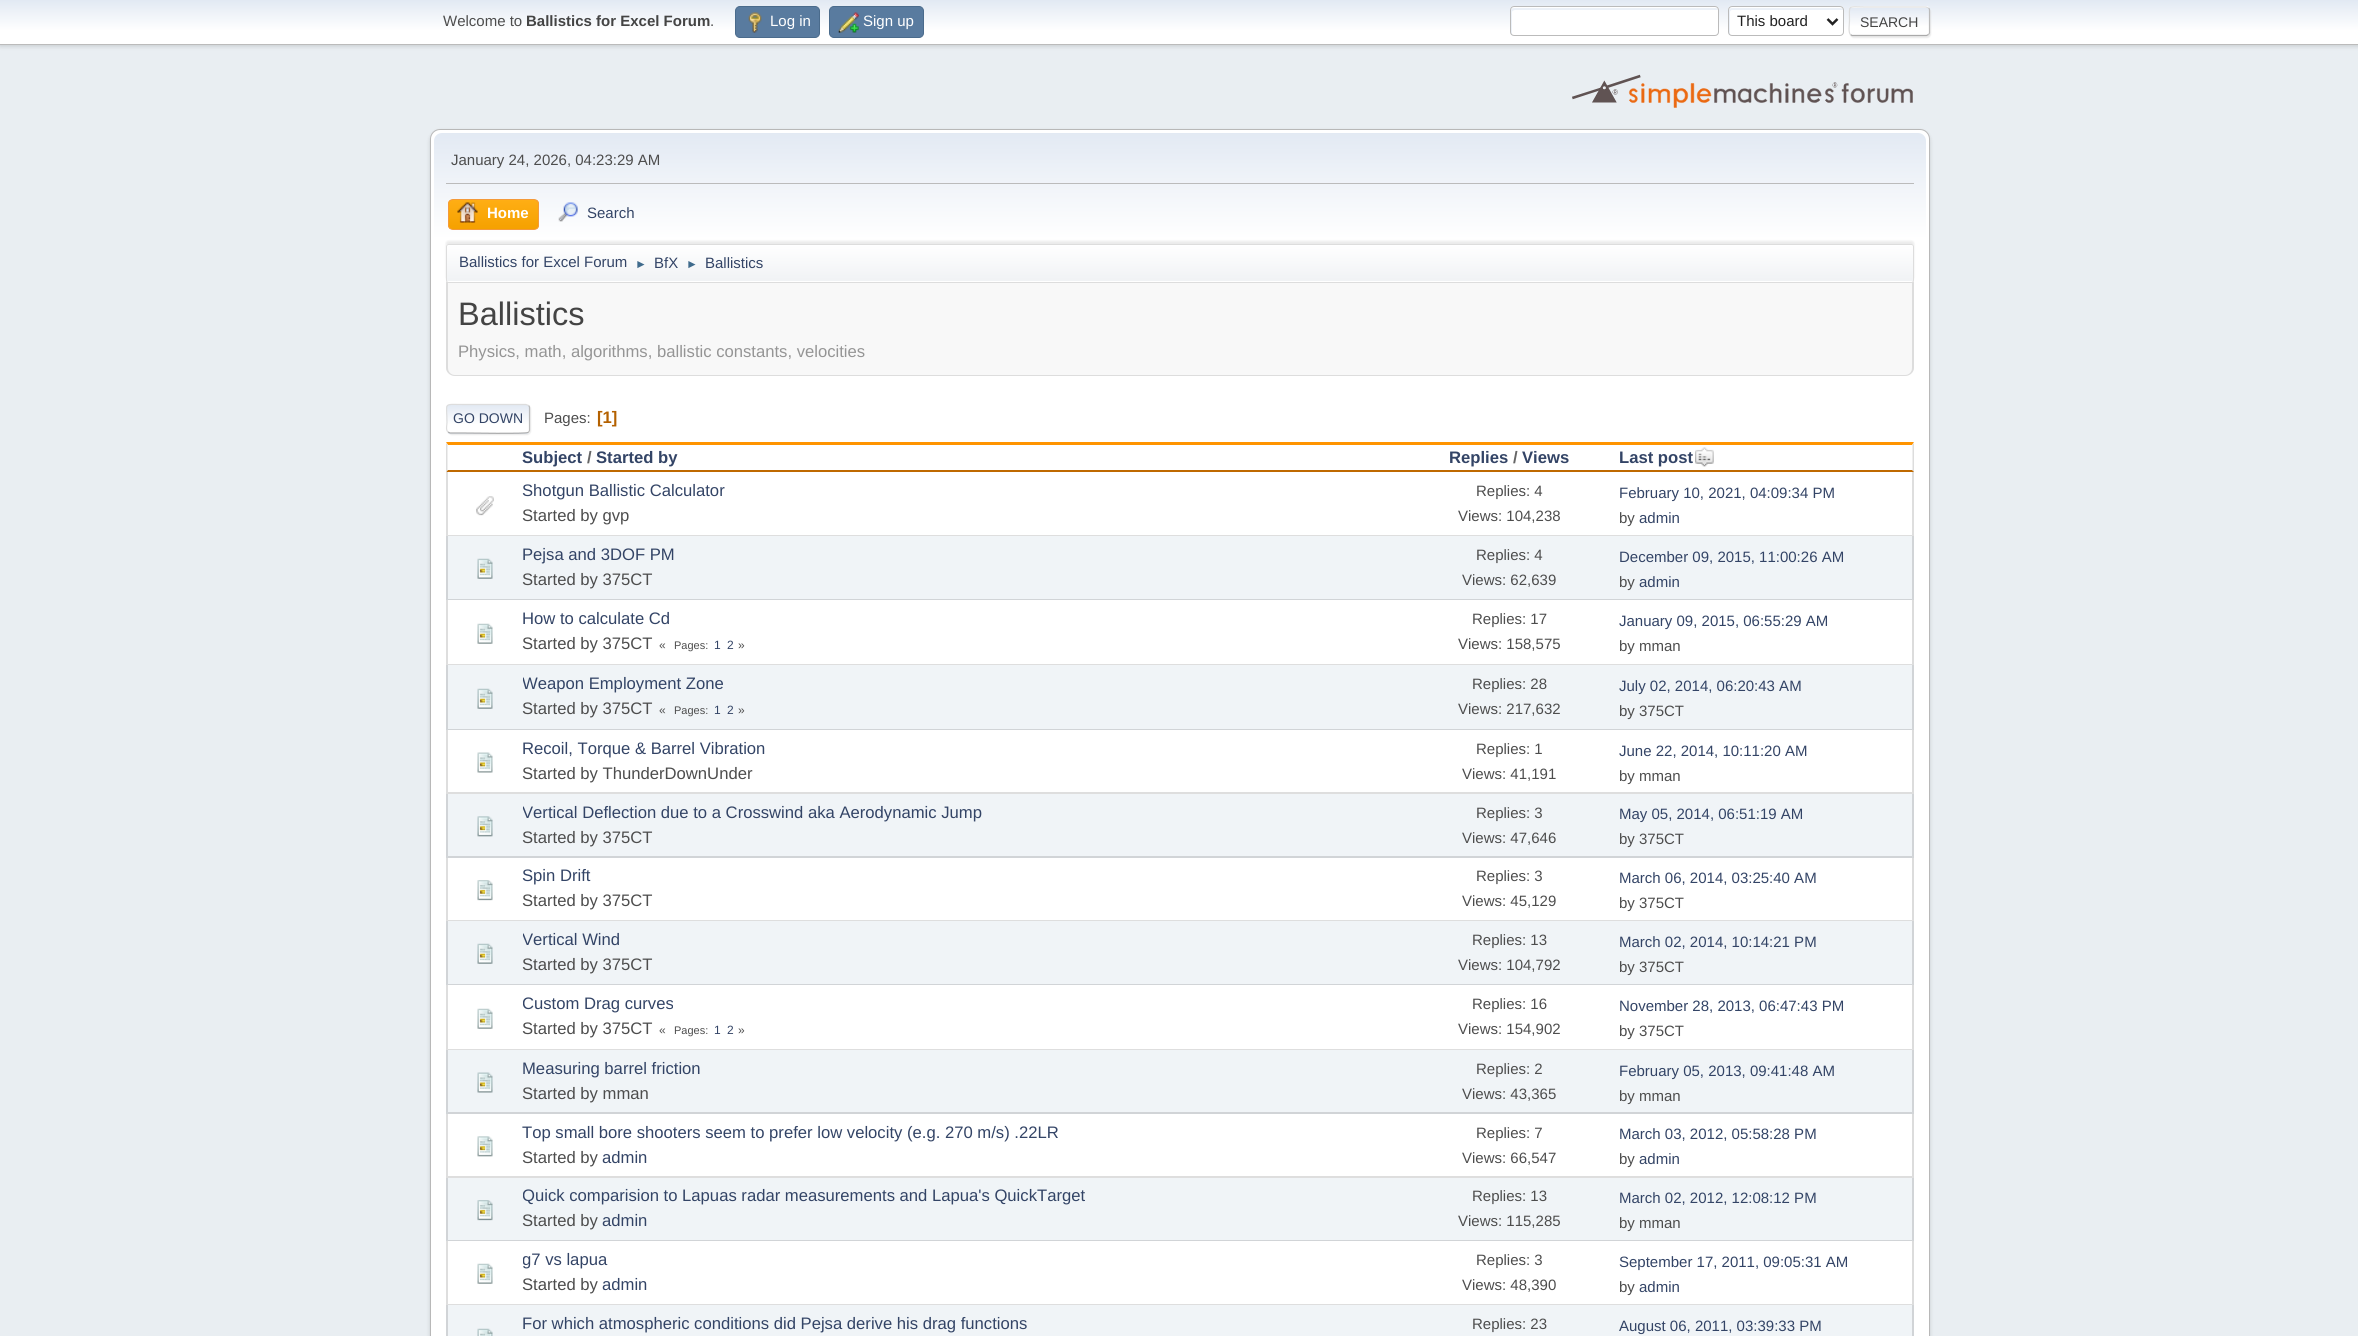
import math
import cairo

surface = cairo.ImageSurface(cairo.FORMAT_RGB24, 2358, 1336)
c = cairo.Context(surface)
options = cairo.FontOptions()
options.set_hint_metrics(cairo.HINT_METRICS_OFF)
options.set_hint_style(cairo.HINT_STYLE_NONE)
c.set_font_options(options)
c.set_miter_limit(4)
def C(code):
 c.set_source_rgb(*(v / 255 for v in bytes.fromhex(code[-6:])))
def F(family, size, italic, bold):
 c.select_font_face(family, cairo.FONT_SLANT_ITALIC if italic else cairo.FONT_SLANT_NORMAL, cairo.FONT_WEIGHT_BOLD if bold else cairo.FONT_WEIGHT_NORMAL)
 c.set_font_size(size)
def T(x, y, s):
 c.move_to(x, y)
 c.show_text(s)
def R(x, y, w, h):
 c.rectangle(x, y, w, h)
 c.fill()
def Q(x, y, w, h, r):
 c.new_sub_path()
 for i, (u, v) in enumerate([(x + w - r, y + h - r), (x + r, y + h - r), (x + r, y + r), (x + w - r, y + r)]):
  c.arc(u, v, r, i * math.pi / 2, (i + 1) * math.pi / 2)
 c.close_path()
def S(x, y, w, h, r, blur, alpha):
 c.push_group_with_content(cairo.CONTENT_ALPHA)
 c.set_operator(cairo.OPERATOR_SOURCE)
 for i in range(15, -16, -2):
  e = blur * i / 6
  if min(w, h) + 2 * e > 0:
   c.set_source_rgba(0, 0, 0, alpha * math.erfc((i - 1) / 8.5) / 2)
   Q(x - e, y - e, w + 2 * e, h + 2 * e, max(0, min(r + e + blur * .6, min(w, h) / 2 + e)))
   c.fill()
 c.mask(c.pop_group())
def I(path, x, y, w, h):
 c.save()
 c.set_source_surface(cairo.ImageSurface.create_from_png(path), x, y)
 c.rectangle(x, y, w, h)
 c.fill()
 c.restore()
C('e9eef2')
c.paint()
C('000000')
S(0,1,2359,45,0,2.5,.16)
gradient = cairo.LinearGradient(1179,0,1179,44)
gradient.add_color_stop_rgba(0,0.886,0.914,0.953,1)
gradient.add_color_stop_rgba(.7,1,1,1,1)
c.set_source(gradient)
R(0,0,2358,44)
C('bbbbbb')
R(0,44,2358,1)
F('Liberation Sans',15,0,0)
C('4d4d4d')
T(443,26,'Welcome to')
F('Liberation Sans',15,0,1)
C('444444')
T(526,26,'Ballistics for Excel Forum')
F('Liberation Sans',15,0,0)
C('4d4d4d')
T(710,26,'.')
C('597b9f')
Q(735.5,6.5,84,31,4.5)
c.fill_preserve()
C('4a6b8c')
c.set_line_width(1)
c.stroke()
I('1.png',748,12,14,21)
C('ffffff')
T(770,26,'Log in')
C('597b9f')
Q(829.5,6.5,94,31,4.5)
c.fill_preserve()
C('4a6b8c')
c.stroke()
I('2.png',838,12,21,21)
C('ffffff')
T(863,26,'Sign up')
Q(1510,6,209,30,4)
c.fill()
C('ecf1f8')
c.new_path()
c.move_to(1515,10)
c.line_to(1716,10)
c.line_to(1718,10)
c.curve_to(1718,9,1717,8,1716,8)
c.line_to(1514,8)
c.curve_to(1512,8,1511,9,1511,10)
c.line_to(1511,32)
c.curve_to(1511,33,1511,34,1512,35)
c.line_to(1512,12)
c.curve_to(1512,11,1514,10,1515,10)
c.close_path()
c.fill()
Q(1510.5,6.5,208,29,3.5)
C('bbbbbb')
c.stroke()
C('ffffff')
Q(1728,6,116,30,4)
c.fill()
C('ecf1f8')
c.new_path()
c.move_to(1732,10)
c.line_to(1841,10)
c.line_to(1843,10)
c.curve_to(1843,9,1842,8,1840,8)
c.line_to(1732,8)
c.curve_to(1730,8,1729,9,1729,10)
c.line_to(1729,32)
c.curve_to(1729,33,1729,34,1730,35)
c.line_to(1730,12)
c.curve_to(1730,11,1731,10,1732,10)
c.close_path()
c.fill()
Q(1728.5,6.5,115,29,3.5)
C('bbbbbb')
c.stroke()
c.new_path()
c.move_to(1827.5,19)
c.line_to(1832.5,24)
c.line_to(1837.5,19)
C('222222')
c.set_line_width(2.5)
c.stroke()
T(1737,26,'This board')
C('dddddd')
S(1850,8,81,30,4,.5,.57)
c.save()
Q(1849,6,81,30,4)
c.clip()
gradient = cairo.LinearGradient(1889,-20,1889,7.5)
gradient.add_color_stop_rgba(0,0.886,0.914,0.953,1)
gradient.add_color_stop_rgba(.7,1,1,1,1)
c.set_source(gradient)
R(1849,6,81,2)
gradient = cairo.LinearGradient(1889,7.5,1889,35)
gradient.add_color_stop_rgba(0,0.886,0.914,0.953,1)
gradient.add_color_stop_rgba(.7,1,1,1,1)
c.set_source(gradient)
R(1849,8,81,27)
c.restore()
c.new_path()
c.move_to(1928.5,8)
c.curve_to(1929,8.5,1929.5,9,1929.5,10)
c.line_to(1929.5,32.5)
c.curve_to(1929.5,33.5,1929,34,1928.5,34.5)
C('bbbbbb')
c.set_line_width(1.2)
c.stroke()
c.new_path()
c.move_to(1928.5,34.5)
c.line_to(1926.5,35.5)
c.line_to(1852,35.5)
c.line_to(1850.5,34.5)
C('aaaaaa')
c.stroke()
c.new_path()
c.move_to(1850.5,34.5)
c.curve_to(1848,32.5,1849.5,24,1849.5,21)
c.curve_to(1849.5,4,1847,7,1865,7)
c.line_to(1926,7)
c.line_to(1928.5,8)
C('dddddd')
c.stroke()
F('Liberation Sans',14,0,0)
C('444444')
T(1860,27,'SEARCH')
I('3.png',1572,74,341,34)
C('000000')
S(430,131,1500,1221,10,2,.14)
C('ffffff')
Q(430.5,129.5,1499,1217,9.5)
c.fill_preserve()
C('b8b8b8')
c.set_line_width(1)
c.stroke()
gradient = cairo.LinearGradient(1180,132,1180,285)
gradient.add_color_stop_rgba(0,0.886,0.914,0.953,1)
gradient.add_color_stop_rgba(.7,1,1,1,1)
c.set_source(gradient)
c.new_path()
c.move_to(442,133)
c.line_to(1918,133)
c.curve_to(1922.5,133,1926,136.5,1926,141)
c.line_to(1926,285)
c.line_to(434,285)
c.line_to(434,141)
c.curve_to(434,136.5,437.5,133,442,133)
c.close_path()
c.fill()
C('bbbbbb')
R(446,183,1468,1)
F('Liberation Sans',15,0,0)
C('4d4d4d')
T(451,165,'January 24, 2026, 04:23:29 AM')
c.save()
Q(448,199,91,31,5)
c.clip()
gradient = cairo.LinearGradient(493,200,493,229)
gradient.add_color_stop_rgba(0,1,0.682,0.078,1)
gradient.add_color_stop_rgba(1,0.961,0.631,0,1)
c.set_source(gradient)
R(448,200,91,29)
c.restore()
Q(448.5,199.5,90,30,4.5)
C('f49a3a')
c.stroke()
I('4.png',457,202,21,21)
F('Liberation Sans',15,0,1)
C('ffffff')
T(487,218,'Home')
I('5.png',558,202,20,20)
F('Liberation Sans',15,0,0)
C('334466')
T(587,218,'Search')
C('000000')
S(446,241,1468,39,2.5,1,.08)
C('ffffff')
Q(446,244,1468,39,2.5)
c.fill()
gradient = cairo.LinearGradient(1180,245,1180,281)
gradient.add_color_stop_rgba(0,1,1,1,1)
gradient.add_color_stop_rgba(.95,0.945,0.953,0.961,1)
c.set_source(gradient)
R(446,245,1468,36)
Q(446.5,244.5,1467,38,2)
C('dddddd')
c.stroke()
C('334466')
T(459,267,'Ballistics for Excel Forum')
F('Liberation Sans',12,0,0)
C('3f6b8c')
T(635,268,'►')
F('Liberation Sans',15,0,0)
C('334466')
T(654,268,'BfX')
F('Liberation Sans',12,0,0)
C('3f6b8c')
T(686,268,'►')
F('Liberation Sans',15,0,0)
C('334466')
T(705,268,'Ballistics')
C('f8f8f8')
c.new_path()
c.move_to(446,283)
c.line_to(1914,283)
c.line_to(1914,367)
c.curve_to(1914,372,1910,376,1905,376)
c.line_to(455,376)
c.curve_to(450,376,446,372,446,367)
c.close_path()
c.fill()
C('dddddd')
c.set_fill_rule(cairo.FILL_RULE_EVEN_ODD)
c.new_path()
c.move_to(446,282)
c.line_to(1914,282)
c.line_to(1914,368)
c.curve_to(1914,372,1910,376,1905,376)
c.line_to(455,376)
c.curve_to(450,376,446,372,446,368)
c.close_path()
c.move_to(448,282)
c.line_to(1912,282)
c.line_to(1912,368)
c.curve_to(1912,372,1909,375,1905,375)
c.line_to(455,375)
c.curve_to(451,375,448,372,448,368)
c.close_path()
c.fill()
F('Liberation Sans',32.5,0,0)
C('444444')
T(458,325,'Ballistics')
F('Liberation Sans',16.65,0,0)
C('959595')
T(458,357,'Physics, math, algorithms, ballistic constants, velocities')
C('dddddd')
S(448,405,83,30,4,.5,.57)
C('ffffff')
Q(446,404,84,30,4)
c.fill()
c.save()
c.set_fill_rule(cairo.FILL_RULE_WINDING)
Q(446,404,84,30,4)
c.clip()
gradient = cairo.LinearGradient(488,405,488,433)
gradient.add_color_stop_rgba(0,0.886,0.914,0.953,1)
gradient.add_color_stop_rgba(.7,1,1,1,1)
c.set_source(gradient)
R(446,405,84,28)
gradient = cairo.LinearGradient(488,433,488,460)
gradient.add_color_stop_rgba(0,0.886,0.914,0.953,1)
gradient.add_color_stop_rgba(.7,1,1,1,1)
c.set_source(gradient)
R(446,433,84,1)
c.restore()
c.new_path()
c.move_to(528.5,405.5)
c.curve_to(529,406,529.5,406.5,529.5,407.5)
c.line_to(529.5,430)
c.curve_to(529.5,431,529,431.5,528.5,432)
C('bbbbbb')
c.set_line_width(1.2)
c.stroke()
c.new_path()
c.move_to(528.5,432)
c.line_to(528,432.5)
c.curve_to(526,434,470,433,462.5,433)
c.line_to(450,433)
c.line_to(448,432)
C('aaaaaa')
c.stroke()
c.new_path()
c.move_to(448,432)
c.curve_to(445.5,430,447,425,447,422.5)
c.curve_to(447,402,442.5,404.5,462.5,404.5)
c.line_to(526,404.5)
c.line_to(528.5,405.5)
C('dddddd')
c.stroke()
F('Liberation Sans',14,0,0)
C('334466')
T(453,423,'GO DOWN')
F('Liberation Sans',15,0,0)
C('4d4d4d')
T(544,423,'Pages:')
F('Liberation Sans',16.65,0,1)
C('b46100')
T(597,423,'[1]')
C('ff9400')
c.set_fill_rule(cairo.FILL_RULE_WINDING)
c.new_path()
c.move_to(446,442)
c.line_to(1914,442)
c.line_to(1912,445)
c.line_to(448,445)
c.close_path()
c.fill()
C('dddddd')
c.new_path()
c.move_to(1914,442.5)
c.line_to(1914,472.5)
c.line_to(1912.5,470)
c.line_to(1912.5,445)
c.close_path()
c.fill()
C('bf6900')
c.new_path()
c.move_to(1914,472)
c.line_to(446,472)
c.line_to(448,470)
c.line_to(1912,470)
c.close_path()
c.fill()
C('dddddd')
c.new_path()
c.move_to(446,472.5)
c.line_to(446,442.5)
c.line_to(447.5,445)
c.line_to(447.5,470)
c.close_path()
c.fill()
C('334466')
T(522,463,'Subject')
C('666666')
T(587,463,'/')
C('334466')
T(596,463,'Started by')
T(1449,463,'Replies')
C('666666')
T(1513,463,'/')
C('334466')
T(1522,463,'Views')
T(1619,463,'Last post')
I('6.png',1695,447,19,20)
c.set_source_rgba(0,0,0,0.13)
c.new_path()
c.move_to(1914,472)
c.line_to(1914,536)
c.line_to(1912,535)
c.line_to(1912,472)
c.close_path()
c.fill()
c.new_path()
c.move_to(1914,536)
c.line_to(446,536)
c.line_to(448,535)
c.line_to(1912,535)
c.close_path()
c.fill()
c.new_path()
c.move_to(446,536)
c.line_to(446,472)
c.line_to(448,472)
c.line_to(448,535)
c.close_path()
c.fill()
I('7.png',476,496,18,20)
F('Liberation Sans',16.65,0,0)
C('334466')
T(522,496,'Shotgun Ballistic Calculator')
C('4d4d4d')
T(522,521,'Started by gvp')
F('Liberation Sans',15,0,0)
T(1476,496,'Replies: 4')
T(1458,521,'Views: 104,238')
C('334466')
T(1619,498,'February 10, 2021, 04:09:34 PM')
C('4d4d4d')
T(1619,523,'by')
C('334466')
T(1639,523,'admin')
C('f0f4f7')
R(446,536,1468,64)
C('d1d4d7')
c.new_path()
c.move_to(1914,536)
c.line_to(1914,600)
c.line_to(1912,599)
c.line_to(1912,536)
c.close_path()
c.fill()
c.set_source_rgba(0,0,0,0.13)
c.new_path()
c.move_to(1914,600)
c.line_to(446,600)
c.line_to(448,599)
c.line_to(1912,599)
c.close_path()
c.fill()
c.new_path()
c.move_to(446,600)
c.line_to(446,536)
c.line_to(448,536)
c.line_to(448,599)
c.close_path()
c.fill()
I('8.png',477,558,16,21)
F('Liberation Sans',16.65,0,0)
C('334466')
T(522,560,'Pejsa and 3DOF PM')
C('4d4d4d')
T(522,585,'Started by 375CT')
F('Liberation Sans',15,0,0)
T(1476,560,'Replies: 4')
T(1462,585,'Views: 62,639')
C('334466')
T(1619,562,'December 09, 2015, 11:00:26 AM')
C('4d4d4d')
T(1619,587,'by')
C('334466')
T(1639,587,'admin')
C('dcdcdc')
c.new_path()
c.move_to(1914,600)
c.line_to(1914,665)
c.line_to(1912,664)
c.line_to(1912,600)
c.close_path()
c.fill()
c.set_source_rgba(0,0,0,0.13)
c.new_path()
c.move_to(1914,665)
c.line_to(446,665)
c.line_to(448,664)
c.line_to(1912,664)
c.close_path()
c.fill()
c.new_path()
c.move_to(446,665)
c.line_to(446,600)
c.line_to(448,600)
c.line_to(448,664)
c.close_path()
c.fill()
I('9.png',477,623,16,21)
F('Liberation Sans',16.65,0,0)
C('334466')
T(522,624,'How to calculate Cd')
C('4d4d4d')
T(522,649,'Started by 375CT')
F('Liberation Sans',12,0,0)
T(659,649,'«')
F('Liberation Sans',11,0,0)
T(674,649,'Pages:')
F('Liberation Sans',12,0,0)
C('334466')
T(714,649,'1')
T(727,649,'2')
C('4d4d4d')
T(738,649,'»')
F('Liberation Sans',15,0,0)
T(1472,624,'Replies: 17')
T(1458,649,'Views: 158,575')
C('334466')
T(1619,626,'January 09, 2015, 06:55:29 AM')
C('4d4d4d')
T(1619,651,'by mman')
C('f0f4f7')
R(446,665,1468,65)
C('d1d4d7')
c.new_path()
c.move_to(1914,665)
c.line_to(1914,730)
c.line_to(1912,729)
c.line_to(1912,665)
c.close_path()
c.fill()
c.set_source_rgba(0,0,0,0.13)
c.new_path()
c.move_to(1914,730)
c.line_to(446,730)
c.line_to(448,729)
c.line_to(1912,729)
c.close_path()
c.fill()
c.new_path()
c.move_to(446,730)
c.line_to(446,665)
c.line_to(448,665)
c.line_to(448,729)
c.close_path()
c.fill()
I('8.png',477,688,16,21)
c.save()
c.rectangle(523,665,876,64)
c.clip()
F('Liberation Sans',16.65,0,0)
C('334466')
T(522,689,'Weapon Employment Zone')
c.restore()
F('Liberation Sans',16.65,0,0)
C('4d4d4d')
T(522,714,'Started by 375CT')
F('Liberation Sans',12,0,0)
T(659,714,'«')
F('Liberation Sans',11,0,0)
T(674,714,'Pages:')
F('Liberation Sans',12,0,0)
C('334466')
T(714,714,'1')
T(727,714,'2')
C('4d4d4d')
T(738,714,'»')
F('Liberation Sans',15,0,0)
T(1472,689,'Replies: 28')
T(1458,714,'Views: 217,632')
C('334466')
T(1619,691,'July 02, 2014, 06:20:43 AM')
C('4d4d4d')
T(1619,716,'by 375CT')
C('dcdcdc')
c.new_path()
c.move_to(1914,730)
c.line_to(1914,794)
c.line_to(1912,792)
c.line_to(1912,730)
c.close_path()
c.fill()
c.set_source_rgba(0,0,0,0.13)
c.new_path()
c.move_to(1914,794)
c.line_to(446,794)
c.line_to(448,792)
c.line_to(1912,792)
c.close_path()
c.fill()
c.new_path()
c.move_to(446,794)
c.line_to(446,730)
c.line_to(448,730)
c.line_to(448,792)
c.close_path()
c.fill()
I('10.png',477,752,16,21)
F('Liberation Sans',16.65,0,0)
C('334466')
T(522,754,'Recoil, Torque & Barrel Vibration')
C('4d4d4d')
T(522,779,'Started by ThunderDownUnder')
F('Liberation Sans',15,0,0)
T(1476,754,'Replies: 1')
T(1462,779,'Views: 41,191')
C('334466')
T(1619,756,'June 22, 2014, 10:11:20 AM')
C('4d4d4d')
T(1619,781,'by mman')
C('f0f4f7')
R(446,794,1468,64)
C('d1d4d7')
c.new_path()
c.move_to(1914,794)
c.line_to(1914,858)
c.line_to(1912,856)
c.line_to(1912,794)
c.close_path()
c.fill()
c.set_source_rgba(0,0,0,0.13)
c.new_path()
c.move_to(1914,858)
c.line_to(446,858)
c.line_to(448,856)
c.line_to(1912,856)
c.close_path()
c.fill()
c.new_path()
c.move_to(446,858)
c.line_to(446,794)
c.line_to(448,794)
c.line_to(448,856)
c.close_path()
c.fill()
I('11.png',477,816,16,21)
c.save()
c.rectangle(523,794,876,62)
c.clip()
F('Liberation Sans',16.65,0,0)
C('334466')
T(522,818,'Vertical Deflection due to a Crosswind aka Aerodynamic Jump')
c.restore()
F('Liberation Sans',16.65,0,0)
C('4d4d4d')
T(522,843,'Started by 375CT')
F('Liberation Sans',15,0,0)
T(1476,818,'Replies: 3')
T(1462,843,'Views: 47,646')
C('334466')
T(1619,819,'May 05, 2014, 06:51:19 AM')
C('4d4d4d')
T(1619,844,'by 375CT')
C('dcdcdc')
c.new_path()
c.move_to(1914,858)
c.line_to(1914,921)
c.line_to(1912,920)
c.line_to(1912,858)
c.close_path()
c.fill()
c.set_source_rgba(0,0,0,0.13)
c.new_path()
c.move_to(1914,921)
c.line_to(446,921)
c.line_to(448,920)
c.line_to(1912,920)
c.close_path()
c.fill()
c.new_path()
c.move_to(446,921)
c.line_to(446,858)
c.line_to(448,858)
c.line_to(448,920)
c.close_path()
c.fill()
I('12.png',477,880,16,21)
F('Liberation Sans',16.65,0,0)
C('334466')
T(522,881,'Spin Drift')
C('4d4d4d')
T(522,906,'Started by 375CT')
F('Liberation Sans',15,0,0)
T(1476,881,'Replies: 3')
T(1462,906,'Views: 45,129')
C('334466')
T(1619,883,'March 06, 2014, 03:25:40 AM')
C('4d4d4d')
T(1619,908,'by 375CT')
C('f0f4f7')
R(446,921,1468,64)
C('d1d4d7')
c.new_path()
c.move_to(1914,921)
c.line_to(1914,985)
c.line_to(1912,984)
c.line_to(1912,921)
c.close_path()
c.fill()
c.set_source_rgba(0,0,0,0.13)
c.new_path()
c.move_to(1914,985)
c.line_to(446,985)
c.line_to(448,984)
c.line_to(1912,984)
c.close_path()
c.fill()
c.new_path()
c.move_to(446,985)
c.line_to(446,921)
c.line_to(448,921)
c.line_to(448,984)
c.close_path()
c.fill()
I('8.png',477,943,16,21)
c.save()
c.rectangle(523,921,876,63)
c.clip()
F('Liberation Sans',16.65,0,0)
C('334466')
T(522,945,'Vertical Wind')
c.restore()
F('Liberation Sans',16.65,0,0)
C('4d4d4d')
T(522,970,'Started by 375CT')
F('Liberation Sans',15,0,0)
T(1472,945,'Replies: 13')
T(1458,970,'Views: 104,792')
C('334466')
T(1619,947,'March 02, 2014, 10:14:21 PM')
C('4d4d4d')
T(1619,972,'by 375CT')
C('dcdcdc')
c.new_path()
c.move_to(1914,985)
c.line_to(1914,1050)
c.line_to(1912,1049)
c.line_to(1912,985)
c.close_path()
c.fill()
c.set_source_rgba(0,0,0,0.13)
c.new_path()
c.move_to(1914,1050)
c.line_to(446,1050)
c.line_to(448,1049)
c.line_to(1912,1049)
c.close_path()
c.fill()
c.new_path()
c.move_to(446,1050)
c.line_to(446,985)
c.line_to(448,985)
c.line_to(448,1049)
c.close_path()
c.fill()
I('9.png',477,1008,16,21)
c.save()
c.rectangle(523,985,876,64)
c.clip()
F('Liberation Sans',16.65,0,0)
C('334466')
T(522,1009,'Custom Drag curves')
c.restore()
F('Liberation Sans',16.65,0,0)
C('4d4d4d')
T(522,1034,'Started by 375CT')
F('Liberation Sans',12,0,0)
T(659,1034,'«')
F('Liberation Sans',11,0,0)
T(674,1034,'Pages:')
F('Liberation Sans',12,0,0)
C('334466')
T(714,1034,'1')
T(727,1034,'2')
C('4d4d4d')
T(738,1034,'»')
F('Liberation Sans',15,0,0)
T(1472,1009,'Replies: 16')
T(1458,1034,'Views: 154,902')
C('334466')
T(1619,1011,'November 28, 2013, 06:47:43 PM')
C('4d4d4d')
T(1619,1036,'by 375CT')
C('f0f4f7')
R(446,1050,1468,64)
C('d1d4d7')
c.new_path()
c.move_to(1914,1050)
c.line_to(1914,1114)
c.line_to(1912,1112)
c.line_to(1912,1050)
c.close_path()
c.fill()
c.set_source_rgba(0,0,0,0.13)
c.new_path()
c.move_to(1914,1114)
c.line_to(446,1114)
c.line_to(448,1112)
c.line_to(1912,1112)
c.close_path()
c.fill()
c.new_path()
c.move_to(446,1114)
c.line_to(446,1050)
c.line_to(448,1050)
c.line_to(448,1112)
c.close_path()
c.fill()
I('13.png',477,1072,16,21)
F('Liberation Sans',16.65,0,0)
C('334466')
T(522,1074,'Measuring barrel friction')
C('4d4d4d')
T(522,1099,'Started by mman')
F('Liberation Sans',15,0,0)
T(1476,1074,'Replies: 2')
T(1462,1099,'Views: 43,365')
C('334466')
T(1619,1076,'February 05, 2013, 09:41:48 AM')
C('4d4d4d')
T(1619,1101,'by mman')
C('dcdcdc')
c.new_path()
c.move_to(1914,1114)
c.line_to(1914,1178)
c.line_to(1912,1176)
c.line_to(1912,1114)
c.close_path()
c.fill()
c.set_source_rgba(0,0,0,0.13)
c.new_path()
c.move_to(1914,1178)
c.line_to(446,1178)
c.line_to(448,1176)
c.line_to(1912,1176)
c.close_path()
c.fill()
c.new_path()
c.move_to(446,1178)
c.line_to(446,1114)
c.line_to(448,1114)
c.line_to(448,1176)
c.close_path()
c.fill()
I('14.png',477,1136,16,21)
F('Liberation Sans',16.65,0,0)
C('334466')
T(522,1138,'Top small bore shooters seem to prefer low velocity (e.g. 270 m/s) .22LR')
C('4d4d4d')
T(522,1163,'Started by')
C('334466')
T(602,1163,'admin')
F('Liberation Sans',15,0,0)
C('4d4d4d')
T(1476,1138,'Replies: 7')
T(1462,1163,'Views: 66,547')
C('334466')
T(1619,1139,'March 03, 2012, 05:58:28 PM')
C('4d4d4d')
T(1619,1164,'by')
C('334466')
T(1639,1164,'admin')
C('f0f4f7')
R(446,1178,1468,63)
C('d1d4d7')
c.new_path()
c.move_to(1914,1178)
c.line_to(1914,1241)
c.line_to(1912,1240)
c.line_to(1912,1178)
c.close_path()
c.fill()
c.set_source_rgba(0,0,0,0.13)
c.new_path()
c.move_to(1914,1241)
c.line_to(446,1241)
c.line_to(448,1240)
c.line_to(1912,1240)
c.close_path()
c.fill()
c.new_path()
c.move_to(446,1241)
c.line_to(446,1178)
c.line_to(448,1178)
c.line_to(448,1240)
c.close_path()
c.fill()
I('15.png',477,1200,16,21)
c.save()
c.rectangle(523,1178,876,62)
c.clip()
F('Liberation Sans',16.65,0,0)
C('334466')
T(522,1201,'Quick comparision to Lapuas radar measurements and Lapua\'s QuickTarget')
c.restore()
F('Liberation Sans',16.65,0,0)
C('4d4d4d')
T(522,1226,'Started by')
C('334466')
T(602,1226,'admin')
F('Liberation Sans',15,0,0)
C('4d4d4d')
T(1472,1201,'Replies: 13')
T(1458,1226,'Views: 115,285')
C('334466')
T(1619,1203,'March 02, 2012, 12:08:12 PM')
C('4d4d4d')
T(1619,1228,'by mman')
C('dcdcdc')
c.new_path()
c.move_to(1914,1241)
c.line_to(1914,1305)
c.line_to(1912,1304)
c.line_to(1912,1241)
c.close_path()
c.fill()
c.set_source_rgba(0,0,0,0.13)
c.new_path()
c.move_to(1914,1305)
c.line_to(446,1305)
c.line_to(448,1304)
c.line_to(1912,1304)
c.close_path()
c.fill()
c.new_path()
c.move_to(446,1305)
c.line_to(446,1241)
c.line_to(448,1241)
c.line_to(448,1304)
c.close_path()
c.fill()
I('9.png',477,1263,16,21)
c.save()
c.rectangle(523,1241,876,63)
c.clip()
F('Liberation Sans',16.65,0,0)
C('334466')
T(522,1265,'g7 vs lapua')
c.restore()
F('Liberation Sans',16.65,0,0)
C('4d4d4d')
T(522,1290,'Started by')
C('334466')
T(602,1290,'admin')
F('Liberation Sans',15,0,0)
C('4d4d4d')
T(1476,1265,'Replies: 3')
T(1462,1290,'Views: 48,390')
C('334466')
T(1619,1267,'September 17, 2011, 09:05:31 AM')
C('4d4d4d')
T(1619,1292,'by')
C('334466')
T(1639,1292,'admin')
C('f0f4f7')
R(448,1305,1464,31)
C('d1d4d7')
c.new_path()
c.move_to(1914,1305)
c.line_to(1914,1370)
c.line_to(1912,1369)
c.line_to(1912,1305)
c.close_path()
c.fill()
c.new_path()
c.move_to(446,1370)
c.line_to(446,1305)
c.line_to(448,1305)
c.line_to(448,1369)
c.close_path()
c.fill()
I('16.png',477,1328,16,8)
F('Liberation Sans',16.65,0,0)
C('334466')
T(522,1329,'For which atmospheric conditions did Pejsa derive his drag functions')
F('Liberation Sans',15,0,0)
C('4d4d4d')
T(1472,1329,'Replies: 23')
C('334466')
T(1619,1331,'August 06, 2011, 03:39:33 PM')
surface.write_to_png('o.png')
